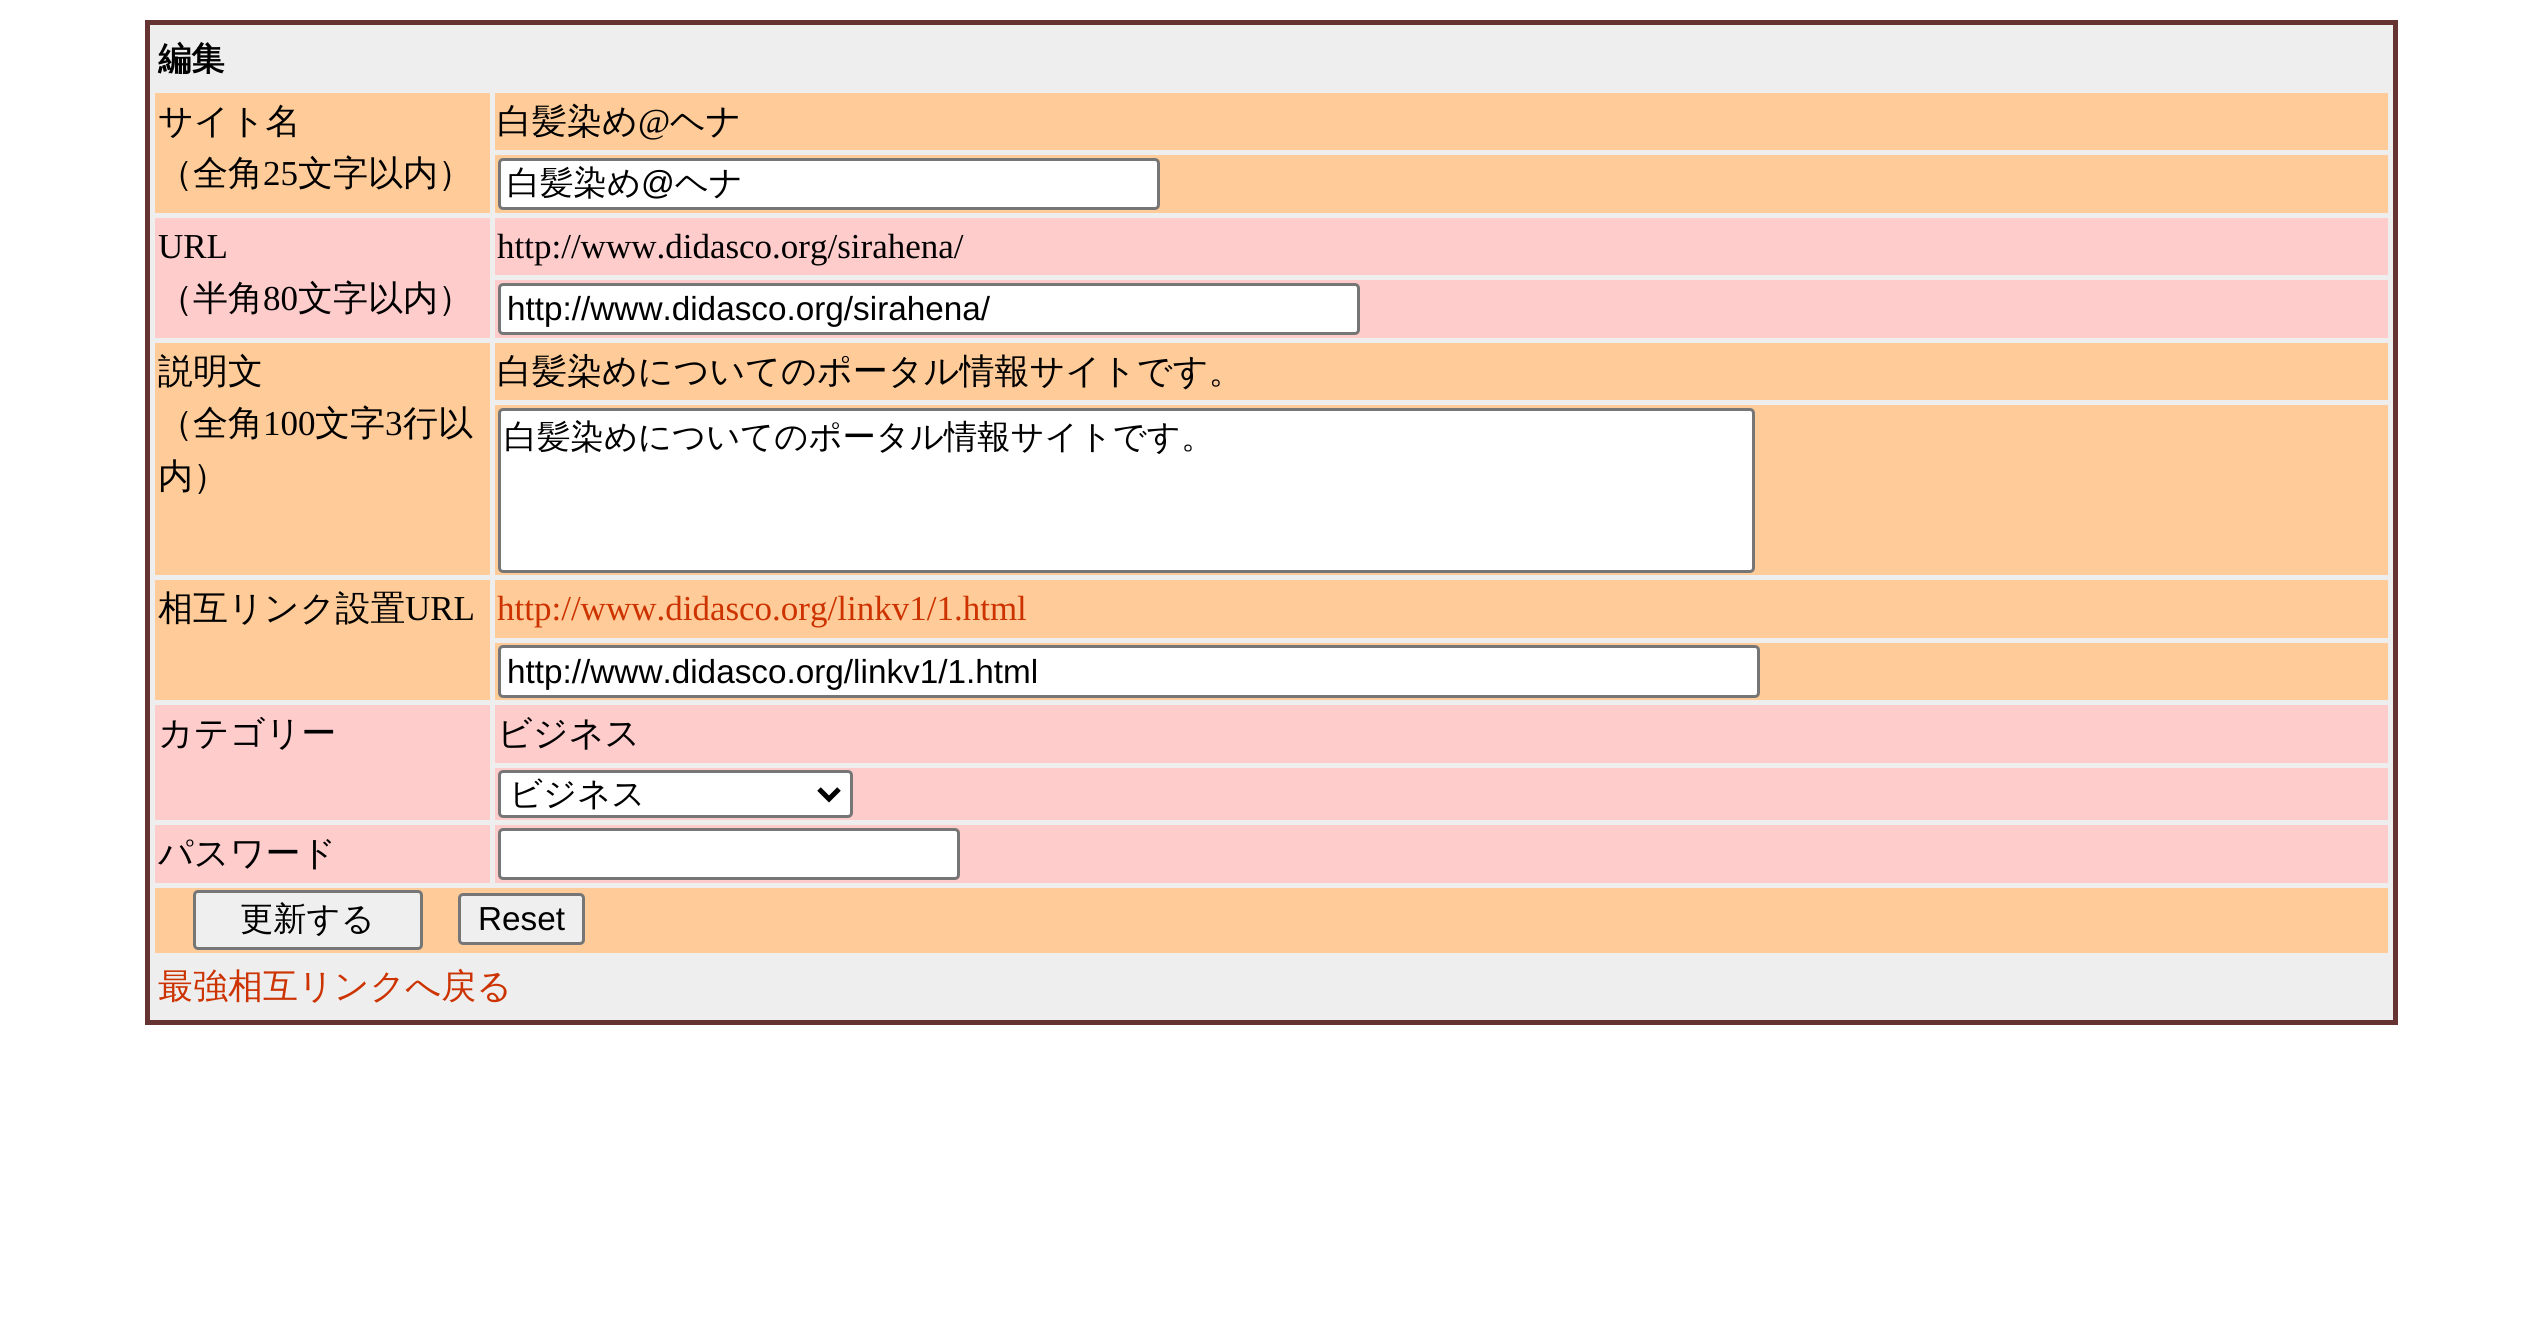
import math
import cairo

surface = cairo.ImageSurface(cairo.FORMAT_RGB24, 2541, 1328)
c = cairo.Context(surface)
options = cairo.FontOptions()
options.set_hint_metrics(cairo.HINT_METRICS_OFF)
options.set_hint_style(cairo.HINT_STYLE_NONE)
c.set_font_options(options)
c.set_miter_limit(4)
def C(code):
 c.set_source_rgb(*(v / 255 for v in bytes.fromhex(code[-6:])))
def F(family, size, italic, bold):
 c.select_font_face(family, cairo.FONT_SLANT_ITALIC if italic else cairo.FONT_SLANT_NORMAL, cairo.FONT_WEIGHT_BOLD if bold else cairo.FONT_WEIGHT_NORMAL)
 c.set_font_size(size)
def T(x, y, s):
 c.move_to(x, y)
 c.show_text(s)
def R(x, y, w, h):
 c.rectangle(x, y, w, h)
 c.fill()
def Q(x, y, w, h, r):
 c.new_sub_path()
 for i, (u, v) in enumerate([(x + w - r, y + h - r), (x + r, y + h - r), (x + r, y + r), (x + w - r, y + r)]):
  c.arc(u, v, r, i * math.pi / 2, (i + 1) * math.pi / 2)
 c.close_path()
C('ffffff')
c.paint()
C('eeeeee')
c.rectangle(147.5,22.5,2248,1000)
c.fill_preserve()
C('663333')
c.set_line_width(5)
c.stroke()
F('WenQuanYi Zen Hei',33.3,0,1)
C('000000')
T(158,70,'編集')
C('ffcc99')
R(155,93,335,120)
F('WenQuanYi Zen Hei Medium',35,0,0)
C('000000')
T(158,133,'サイト名')
T(158,185,'（全角')
F('Liberation Serif',35,0,0)
T(263,185,'25')
F('WenQuanYi Zen Hei Medium',35,0,0)
T(298,185,'文字以内）')
C('ffcc99')
R(495,93,1893,57)
C('000000')
T(497,133,'白髪染め')
F('Liberation Serif',35,0,0)
T(638,133,'@')
F('WenQuanYi Zen Hei Medium',35,0,0)
T(670,133,'ヘナ')
C('ffcc99')
R(495,155,1893,58)
C('ffffff')
Q(499.5,159.5,659,49,3.5)
c.fill_preserve()
C('767676')
c.set_line_width(3)
c.stroke()
F('WenQuanYi Zen Hei Medium',33.3,0,0)
C('000000')
T(507,194,'白髪染め')
F('Liberation Sans',33.3,0,0)
T(641,194,'@')
F('WenQuanYi Zen Hei Medium',33.3,0,0)
T(675,194,'ヘナ')
C('ffcccc')
R(155,218,335,120)
F('Liberation Serif',35,0,0)
C('000000')
T(158,258,'URL')
F('WenQuanYi Zen Hei Medium',35,0,0)
T(158,310,'（半角')
F('Liberation Serif',35,0,0)
T(263,310,'80')
F('WenQuanYi Zen Hei Medium',35,0,0)
T(298,310,'文字以内）')
C('ffcccc')
R(495,218,1893,57)
F('Liberation Serif',35,0,0)
C('000000')
T(497,258,'http://www.didasco.org/sirahena/')
C('ffcccc')
R(495,280,1893,58)
C('ffffff')
Q(499.5,284.5,859,49,3.5)
c.fill_preserve()
C('767676')
c.stroke()
F('Liberation Sans',33.3,0,0)
C('000000')
T(507,320,'http://www.didasco.org/sirahena/')
C('ffcc99')
R(155,343,335,232)
F('WenQuanYi Zen Hei Medium',35,0,0)
C('000000')
T(158,383,'説明文')
T(158,435,'（全角')
F('Liberation Serif',35,0,0)
T(263,435,'100')
F('WenQuanYi Zen Hei Medium',35,0,0)
T(315,435,'文字')
F('Liberation Serif',35,0,0)
T(385,435,'3')
F('WenQuanYi Zen Hei Medium',35,0,0)
T(403,435,'行以')
T(158,488,'内）')
C('ffcc99')
R(495,343,1893,57)
C('000000')
T(497,383,'白髪染めについてのポータル情報サイトです。')
C('ffcc99')
R(495,405,1893,170)
C('ffffff')
Q(499.5,409.5,1254,162,3.5)
c.fill_preserve()
C('767676')
c.stroke()
F('WenQuanYi Zen Hei Medium',33.3,0,0)
C('000000')
T(504,448,'白髪染めについてのポータル情報サイトです。')
C('ffcc99')
R(155,580,335,120)
F('WenQuanYi Zen Hei Medium',35,0,0)
C('000000')
T(158,620,'相互リンク設置')
F('Liberation Serif',35,0,0)
T(405,620,'URL')
C('ffcc99')
R(495,580,1893,58)
C('cc3300')
T(497,620,'http://www.didasco.org/linkv1/1.html')
C('ffcc99')
R(495,643,1893,57)
C('ffffff')
Q(499.5,646.5,1259,50,3.5)
c.fill_preserve()
C('767676')
c.stroke()
F('Liberation Sans',33.3,0,0)
C('000000')
T(507,683,'http://www.didasco.org/linkv1/1.html')
C('ffcccc')
R(155,705,335,115)
F('WenQuanYi Zen Hei Medium',35,0,0)
C('000000')
T(158,745,'カテゴリー')
C('ffcccc')
R(495,705,1893,58)
C('000000')
T(497,745,'ビジネス')
C('ffcccc')
R(495,768,1893,52)
C('ffffff')
Q(499.5,771.5,352,45,3.5)
c.fill_preserve()
C('767676')
c.stroke()
c.new_path()
c.move_to(819,789)
c.line_to(829,799)
c.line_to(839,789)
C('000000')
c.set_line_width(5)
c.stroke()
F('WenQuanYi Zen Hei Medium',33.3,0,0)
T(509,805,'ビジネス')
C('ffcccc')
R(155,825,335,58)
F('WenQuanYi Zen Hei Medium',35,0,0)
C('000000')
T(158,865,'パスワード')
C('ffcccc')
R(495,825,1893,58)
C('ffffff')
Q(499.5,829.5,459,49,3.5)
c.fill_preserve()
C('767676')
c.set_line_width(3)
c.stroke()
C('ffcc99')
R(155,888,2233,65)
C('efefef')
Q(194.5,891.5,227,57,3.5)
c.fill_preserve()
C('767676')
c.stroke()
F('WenQuanYi Zen Hei Medium',33.3,0,0)
C('000000')
T(240,930,'更新する')
C('efefef')
Q(459.5,894.5,124,49,3.5)
c.fill_preserve()
C('767676')
c.stroke()
F('Liberation Sans',33.3,0,0)
C('000000')
T(478,930,'Reset')
F('WenQuanYi Zen Hei Medium',35,0,0)
C('cc3300')
T(158,998,'最強相互リンクへ戻る')
surface.write_to_png('o.png')
